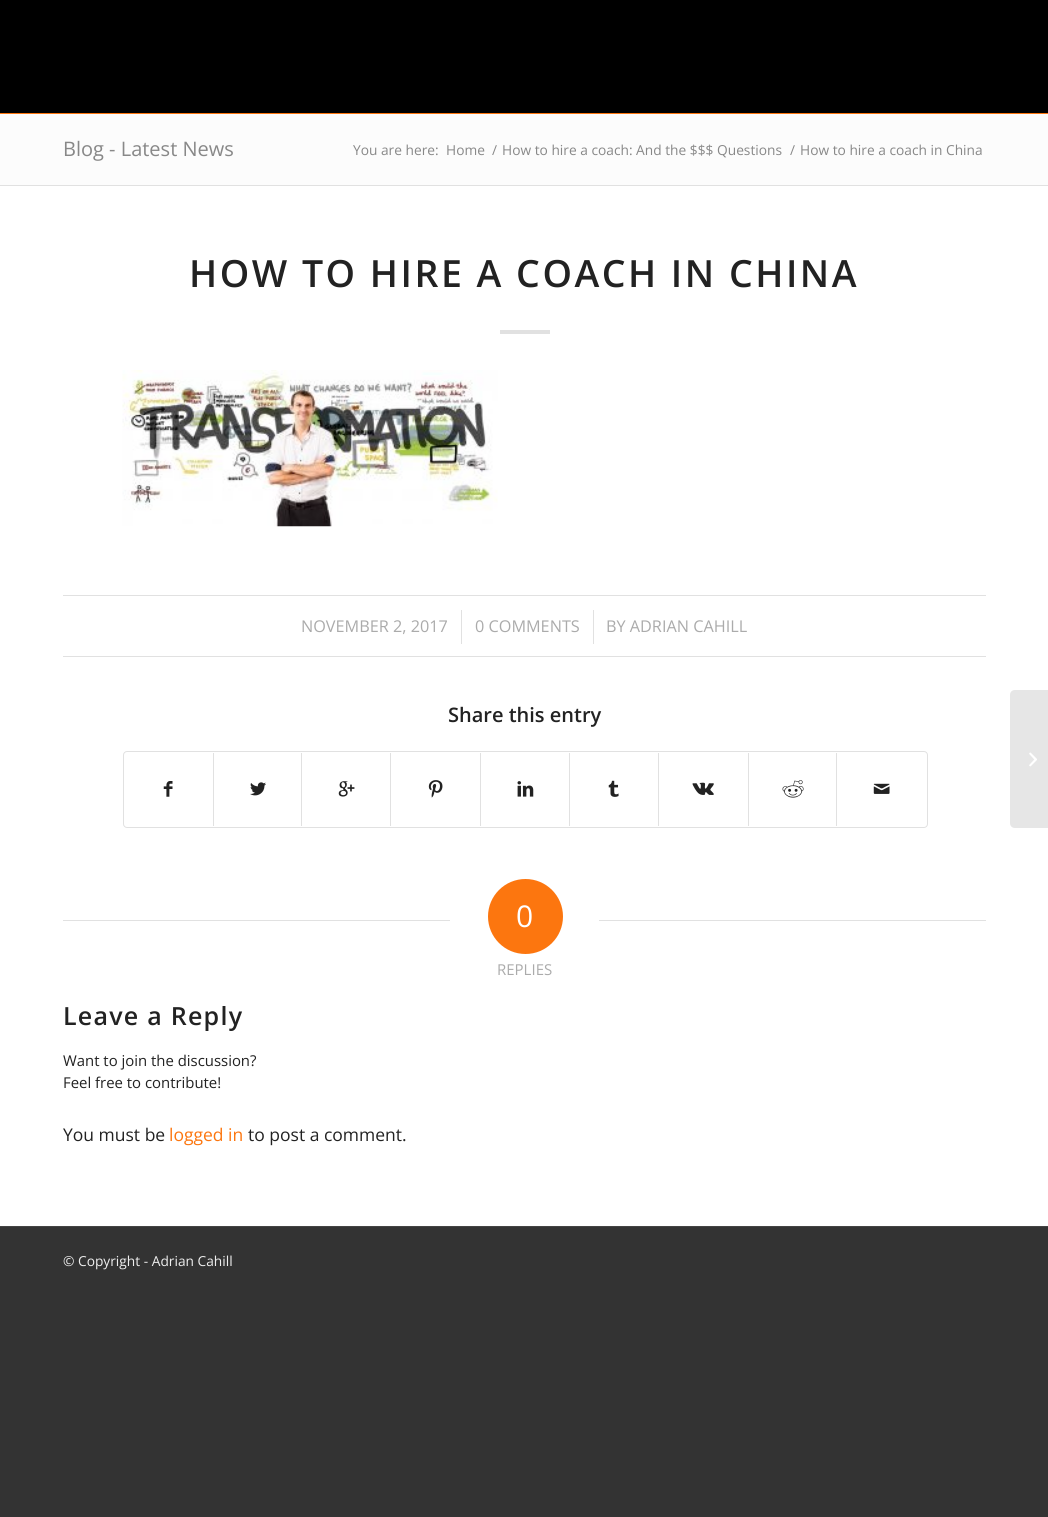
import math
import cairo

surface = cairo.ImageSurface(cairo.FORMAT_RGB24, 1048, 1517)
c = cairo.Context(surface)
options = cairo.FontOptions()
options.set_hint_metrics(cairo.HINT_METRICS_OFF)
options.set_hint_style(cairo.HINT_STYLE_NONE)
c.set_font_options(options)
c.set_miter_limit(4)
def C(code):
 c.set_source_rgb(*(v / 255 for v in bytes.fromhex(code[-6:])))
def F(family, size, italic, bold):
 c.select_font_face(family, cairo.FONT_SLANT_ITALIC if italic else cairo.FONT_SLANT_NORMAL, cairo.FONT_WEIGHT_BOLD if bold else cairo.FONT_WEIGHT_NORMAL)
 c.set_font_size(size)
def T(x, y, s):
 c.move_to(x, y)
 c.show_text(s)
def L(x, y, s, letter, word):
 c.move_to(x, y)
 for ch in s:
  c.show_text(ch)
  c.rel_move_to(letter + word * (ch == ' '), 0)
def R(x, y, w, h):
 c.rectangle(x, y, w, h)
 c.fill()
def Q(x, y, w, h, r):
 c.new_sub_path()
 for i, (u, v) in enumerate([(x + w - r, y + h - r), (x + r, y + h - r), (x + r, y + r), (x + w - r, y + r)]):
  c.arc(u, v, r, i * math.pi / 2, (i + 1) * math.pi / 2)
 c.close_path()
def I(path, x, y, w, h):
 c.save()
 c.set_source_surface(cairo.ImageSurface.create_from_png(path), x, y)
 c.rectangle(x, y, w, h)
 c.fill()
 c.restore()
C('333333')
c.paint()
C('000000')
R(0,0,1048,113)
C('fc760f')
R(0,113,1048,1)
C('fcfcfc')
R(0,114,1048,71)
F('Open Sans',20,0,0)
C('888888')
T(63,156,'Blog - Latest News')
F('Open Sans',13.75,0,0)
T(353,155,'You are here:')
T(446,155,'Home')
T(492,155,'/')
T(502,155,'How to hire a coach: And the $$$ Questions')
T(790,155,'/')
T(800,155,'How to hire a coach in China')
C('ffffff')
R(0,186,1048,1040)
C('e1e1e1')
R(0,185,1048,1)
F('Open Sans SemiBold',37.5,0,0)
C('222222')
L(189,287,'HOW TO HIRE A COACH IN CHINA',2.5,0)
C('e1e1e1')
R(500,330,50,4)
I('1.png',122,370,376,157)
R(63,595,923,1)
R(63,656,923,1)
F('Open Sans',16.25,0,0)
C('ababab')
T(301,632,'NOVEMBER 2, 2017')
C('e1e1e1')
R(461,610,1,34)
C('ababab')
T(475,632,'0 COMMENTS')
C('e1e1e1')
R(593,610,1,34)
C('ababab')
T(606,632,'BY ADRIAN CAHILL')
F('Open Sans SemiBold',20,0,0)
C('222222')
T(448,722,'Share this entry')
Q(123.5,751.5,804,76,3.5)
C('e1e1e1')
c.set_line_width(1)
c.stroke()
I('2.png',163,781,10,16)
R(213,753,1,73)
I('3.png',250,782,16,14)
R(301,753,1,73)
I('4.png',338,781,17,16)
R(390,753,1,73)
I('5.png',428,780,15,18)
R(480,753,1,73)
I('6.png',517,781,17,16)
R(569,753,1,73)
I('7.png',608,780,11,17)
R(658,753,1,73)
I('8.png',692,782,22,13)
R(748,753,1,73)
I('9.png',782,780,22,18)
R(836,753,1,73)
I('10.png',873,783,17,11)
R(63,920,387,1)
C('fc760f')
c.arc(525.5,916.5,37.5,0,2 * math.pi)
c.fill()
F('Open Sans',30,0,0)
C('ffffff')
T(516,927,'0')
C('e1e1e1')
R(599,920,387,1)
F('Open Sans',15,0,0)
C('ababab')
T(497,975,'REPLIES')
F('Open Sans SemiBold',25,0,0)
C('222222')
L(63,1025,'Leave a Reply',1.25,0)
F('Open Sans',14.9,0,0)
T(63,1066,'Want to join the discussion?')
T(63,1088,'Feel free to contribute!')
F('Open Sans',17.5,0,0)
T(63,1141,'You must be')
C('fc760f')
T(169,1141,'logged in')
C('222222')
T(248,1141,'to post a comment.')
C('444444')
R(0,1226,1048,1)
F('Open Sans',13.75,0,0)
C('eeeeee')
T(63,1266,'© Copyright - Adrian Cahill')
C('e6e6e6')
c.new_path()
c.move_to(1015,690)
c.line_to(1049,690)
c.line_to(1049,828)
c.line_to(1015,828)
c.curve_to(1012,828,1010,826,1010,823)
c.line_to(1010,695)
c.curve_to(1010,692,1012,690,1015,690)
c.close_path()
c.fill()
I('11.png',1029,752,8,15)
surface.write_to_png('o.png')
